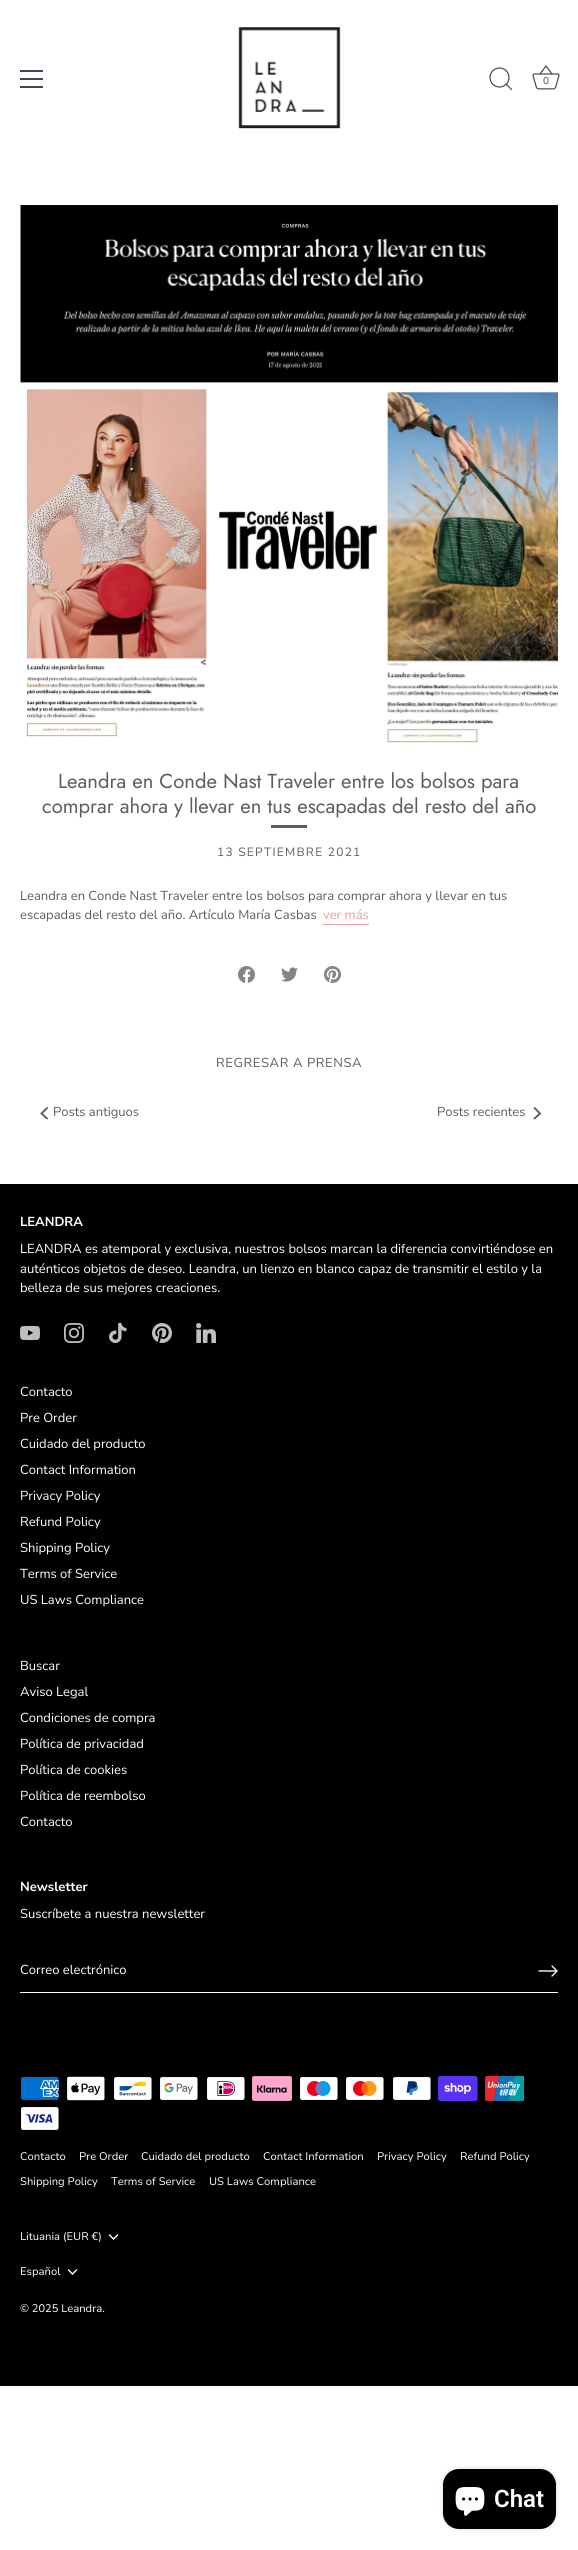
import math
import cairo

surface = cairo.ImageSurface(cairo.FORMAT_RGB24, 578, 2550)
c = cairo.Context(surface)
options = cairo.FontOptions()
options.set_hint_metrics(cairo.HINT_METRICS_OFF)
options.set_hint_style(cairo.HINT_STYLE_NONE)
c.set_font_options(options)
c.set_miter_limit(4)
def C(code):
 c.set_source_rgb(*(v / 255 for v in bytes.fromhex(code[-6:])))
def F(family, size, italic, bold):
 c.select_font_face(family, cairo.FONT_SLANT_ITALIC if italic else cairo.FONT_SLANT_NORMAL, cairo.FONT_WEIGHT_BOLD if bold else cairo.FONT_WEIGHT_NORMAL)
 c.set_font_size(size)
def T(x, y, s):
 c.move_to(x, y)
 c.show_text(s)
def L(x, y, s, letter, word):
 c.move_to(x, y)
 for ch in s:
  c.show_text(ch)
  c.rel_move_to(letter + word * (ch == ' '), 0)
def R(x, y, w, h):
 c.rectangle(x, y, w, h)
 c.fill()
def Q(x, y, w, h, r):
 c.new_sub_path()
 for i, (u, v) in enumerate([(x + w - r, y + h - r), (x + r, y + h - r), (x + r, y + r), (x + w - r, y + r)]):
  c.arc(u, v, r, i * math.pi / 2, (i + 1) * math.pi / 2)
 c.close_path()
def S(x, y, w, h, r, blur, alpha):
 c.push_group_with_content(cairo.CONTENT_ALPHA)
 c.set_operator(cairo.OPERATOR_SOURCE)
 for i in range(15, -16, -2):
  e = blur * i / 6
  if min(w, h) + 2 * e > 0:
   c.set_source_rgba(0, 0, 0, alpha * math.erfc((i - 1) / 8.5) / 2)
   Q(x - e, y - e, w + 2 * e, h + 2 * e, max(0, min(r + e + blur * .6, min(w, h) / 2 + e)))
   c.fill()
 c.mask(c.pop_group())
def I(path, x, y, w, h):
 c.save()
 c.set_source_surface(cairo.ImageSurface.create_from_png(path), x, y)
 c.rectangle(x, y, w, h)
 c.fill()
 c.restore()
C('ffffff')
c.paint()
C('464654')
R(20,70,23,2)
R(20,78,23,2)
R(20,86,23,2)
I('1.png',238,27,103,102)
c.arc(499.5,77.5,9.5,0,2 * math.pi)
c.set_line_width(1.2)
c.stroke()
c.new_path()
c.move_to(511.5,89.5)
c.line_to(506,84)
c.set_line_cap(cairo.LINE_CAP_ROUND)
c.set_line_join(cairo.LINE_JOIN_ROUND)
c.stroke()
I('2.png',532,65,28,25)
F('Nunito Sans',10,0,0)
T(543,84,'0')
I('3.png',20,205,538,538)
F('Jost',20.25,0,0)
C('5e5c5c')
T(58,788,'Leandra en Conde Nast Traveler entre los bolsos para')
T(42,813,'comprar ahora y llevar en tus escapadas del resto del año')
R(271,825,36,3)
F('Nunito Sans',12,0,0)
L(217,856,'13 SEPTIEMBRE 2021',1.25,0)
F('Nunito Sans',13,0,0)
T(20,900,'Leandra en Conde Nast Traveler entre los bolsos para comprar ahora y llevar en tus')
T(20,919,'escapadas del resto del año. Artículo María Casbas')
C('ef9a9a')
T(323,919,'ver más')
R(323,924,46,1)
I('4.png',238,966,17,17)
I('5.png',281,967,17,15)
I('6.png',324,966,17,17)
C('5e5c5c')
L(216,1067,'REGRESAR A PRENSA',.6,0)
c.new_path()
c.move_to(47,1108)
c.line_to(41.5,1113.5)
c.line_to(47,1118.5)
c.set_line_width(1.9)
c.set_line_join(cairo.LINE_JOIN_MITER)
c.stroke()
T(53,1116,'Posts antiguos')
T(437,1116,'Posts recientes')
c.new_path()
c.move_to(534.5,1118.5)
c.line_to(540,1113.5)
c.line_to(534.5,1108)
c.stroke()
C('000000')
R(0,1184,578,1202)
F('Nunito Sans',13,0,1)
C('ffffff')
T(20,1226,'LEANDRA')
F('Nunito Sans',13,0,0)
T(20,1253,'LEANDRA es atemporal y exclusiva, nuestros bolsos marcan la diferencia convirtiéndose en')
T(20,1273,'auténticos objetos de deseo. Leandra, un lienzo en blanco capaz de transmitir el estilo y la')
T(20,1292,'belleza de sus mejores creaciones.')
I('7.png',20,1325,20,16)
I('8.png',64,1323,20,20)
I('9.png',109,1323,18,20)
I('10.png',152,1323,20,20)
I('11.png',196,1323,20,20)
T(20,1396,'Contacto')
T(20,1422,'Pre Order')
T(20,1448,'Cuidado del producto')
T(20,1474,'Contact Information')
T(20,1500,'Privacy Policy')
T(20,1526,'Refund Policy')
T(20,1552,'Shipping Policy')
T(20,1578,'Terms of Service')
T(20,1604,'US Laws Compliance')
T(20,1670,'Buscar')
T(20,1696,'Aviso Legal')
T(20,1722,'Condiciones de compra')
T(20,1748,'Política de privacidad')
T(20,1774,'Política de cookies')
T(20,1800,'Política de reembolso')
T(20,1826,'Contacto')
F('Nunito Sans',13,0,1)
T(20,1891,'Newsletter')
F('Nunito Sans',13,0,0)
T(20,1918,'Suscríbete a nuestra newsletter')
R(20,1992,538,1)
T(20,1974,'Correo electrónico')
c.new_path()
c.move_to(552,1976)
c.line_to(557,1971)
c.line_to(552,1966)
c.set_line_width(1.3)
c.stroke()
c.new_path()
c.move_to(556,1971)
c.line_to(539,1971)
c.set_line_join(cairo.LINE_JOIN_ROUND)
c.stroke()
I('12.png',21,2077,38,23)
I('13.png',67,2076,38,25)
I('14.png',114,2077,38,23)
I('15.png',160,2077,38,23)
I('16.png',207,2077,38,23)
I('17.png',252,2076,40,25)
I('18.png',300,2077,38,23)
I('19.png',346,2077,38,23)
I('20.png',393,2077,38,23)
I('21.png',438,2076,40,25)
I('22.png',485,2076,39,25)
I('23.png',21,2107,38,23)
F('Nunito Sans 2',11,0,0)
T(20,2160,'Contacto')
T(79,2160,'Pre Order')
T(141,2160,'Cuidado del producto')
T(263,2160,'Contact Information')
T(377,2160,'Privacy Policy')
T(460,2160,'Refund Policy')
T(20,2185,'Shipping Policy')
T(111,2185,'Terms of Service')
T(209,2185,'US Laws Compliance')
T(20,2240,'Lituania (EUR €)')
c.new_path()
c.move_to(109.5,2235)
c.line_to(113.5,2239)
c.line_to(117.5,2235)
c.set_line_width(1.4)
c.set_line_join(cairo.LINE_JOIN_MITER)
c.stroke()
T(20,2275,'Español')
c.new_path()
c.move_to(68.5,2270)
c.line_to(72.5,2274)
c.line_to(76.5,2270)
c.stroke()
T(20,2312,'© 2025 Leandra.')
C('000000')
S(443,2469,113,60,16,2.5,.15)
C('000000')
Q(443,2469,113,60,16)
c.fill()
I('24.png',455,2487,30,29)
F('Roboto SemiBold',24,0,0)
C('ffffff')
T(494,2507,'Chat')
surface.write_to_png('o.png')
